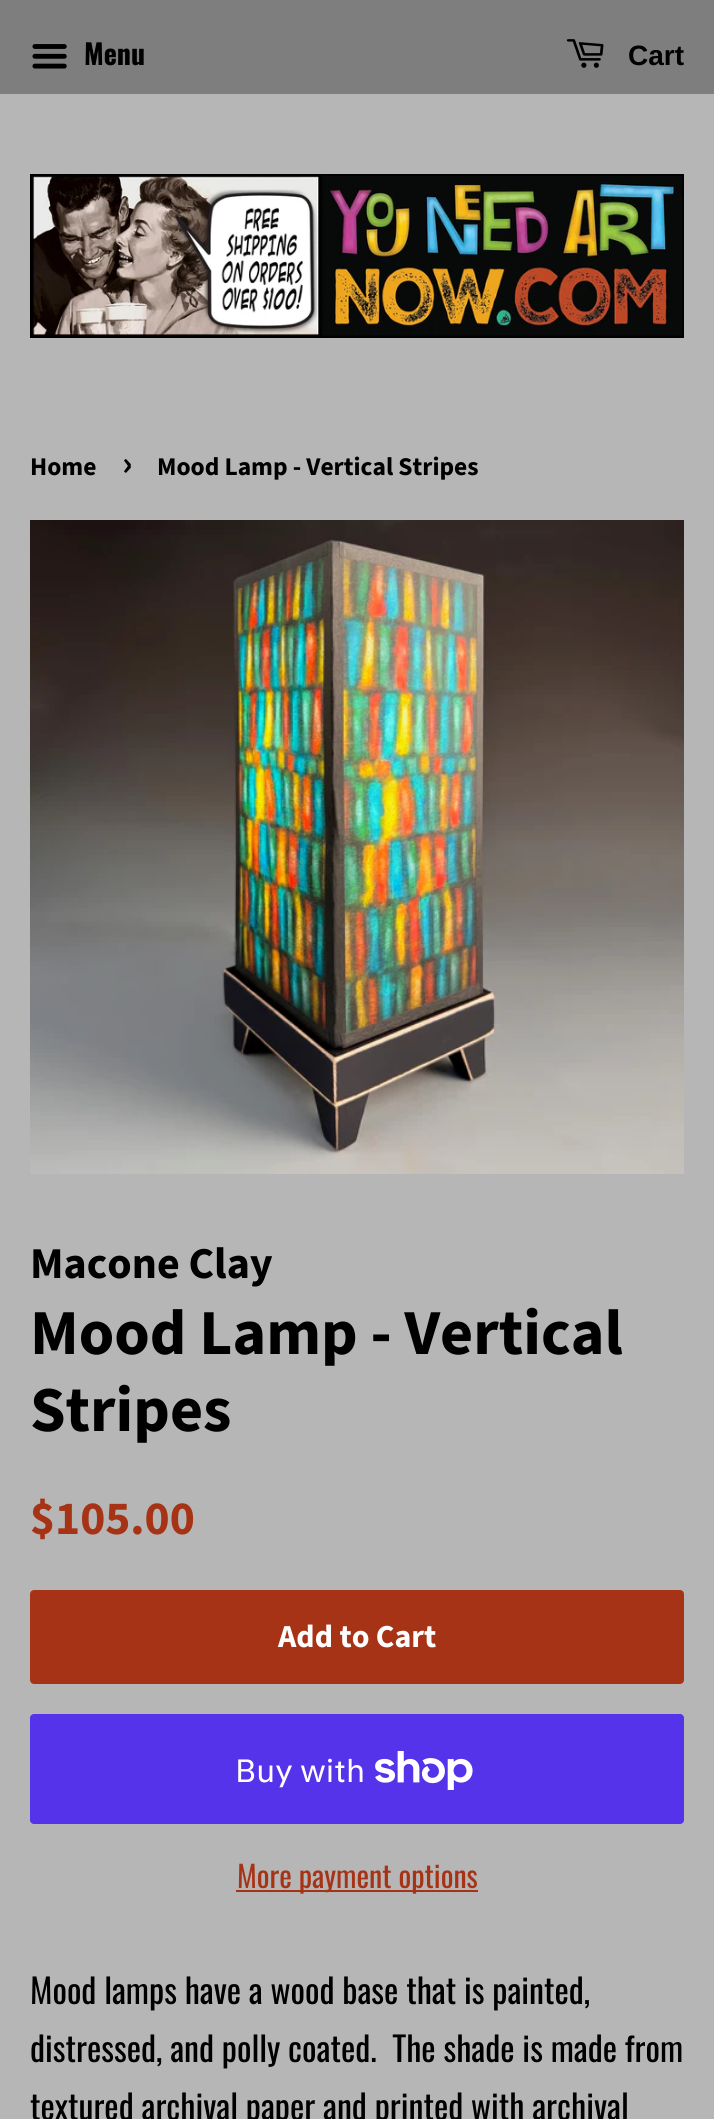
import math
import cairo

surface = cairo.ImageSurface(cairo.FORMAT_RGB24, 714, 2119)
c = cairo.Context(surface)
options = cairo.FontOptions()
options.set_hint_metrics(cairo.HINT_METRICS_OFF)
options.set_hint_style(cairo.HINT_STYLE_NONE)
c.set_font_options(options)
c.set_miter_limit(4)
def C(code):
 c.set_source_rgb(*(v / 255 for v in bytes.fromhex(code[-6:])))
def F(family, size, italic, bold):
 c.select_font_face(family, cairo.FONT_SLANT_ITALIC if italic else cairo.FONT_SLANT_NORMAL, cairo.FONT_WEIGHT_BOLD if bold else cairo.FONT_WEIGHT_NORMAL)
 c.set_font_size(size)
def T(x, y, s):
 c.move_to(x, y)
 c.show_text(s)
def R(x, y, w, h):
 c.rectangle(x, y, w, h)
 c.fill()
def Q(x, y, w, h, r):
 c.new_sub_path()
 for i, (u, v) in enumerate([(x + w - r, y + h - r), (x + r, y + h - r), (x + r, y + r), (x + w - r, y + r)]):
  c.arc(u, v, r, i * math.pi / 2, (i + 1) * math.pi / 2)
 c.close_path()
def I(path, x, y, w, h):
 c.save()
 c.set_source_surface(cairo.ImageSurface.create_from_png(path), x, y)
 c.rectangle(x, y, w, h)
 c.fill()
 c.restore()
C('b6b6b6')
c.paint()
C('7e7e7e')
R(0,0,714,94)
I('1.png',32,44,35,25)
F('Oswald',28,0,1)
C('000000')
T(84,65,'Menu')
I('2.png',566,39,38,29)
F('Liberation Sans',28,0,1)
T(628,65,'Cart')
I('3.png',30,174,654,164)
F('Source Sans Pro',25.5,0,1)
T(30,475,'Home')
F('Source Sans Pro',36,0,1)
T(122,475,'›')
F('Source Sans Pro',25.5,0,1)
T(157,475,'Mood Lamp - Vertical Stripes')
I('4.png',30,520,654,654)
F('Source Sans Pro',44,0,1)
T(30,1278,'Macone Clay')
F('Source Sans Pro',64,0,1)
T(30,1354,'Mood Lamp - Vertical')
T(30,1431,'Stripes')
F('Source Sans Pro',47.5,0,1)
C('a73316')
T(30,1534,'$105.00')
Q(31,1591,652,92,3)
c.fill_preserve()
c.stroke()
F('Source Sans Pro',32,0,1)
C('ffffff')
T(278,1647,'Add to Cart')
C('5433eb')
Q(30,1714,654,110,4)
c.fill()
F('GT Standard',32,0,0)
C('ffffff')
T(235,1782,'Buy with')
I('5.png',375,1751,98,39)
C('a73316')
R(236,1890,242,2)
F('Oswald',30,0,0)
T(237,1888,'More payment options')
F('Oswald',34,0,0)
C('000000')
T(30,2004,'Mood lamps have a wood base that is painted,')
T(30,2062,'distressed, and polly coated.  The shade is made from')
T(30,2120,'textured archival paper and printed with archival')
surface.write_to_png('o.png')
